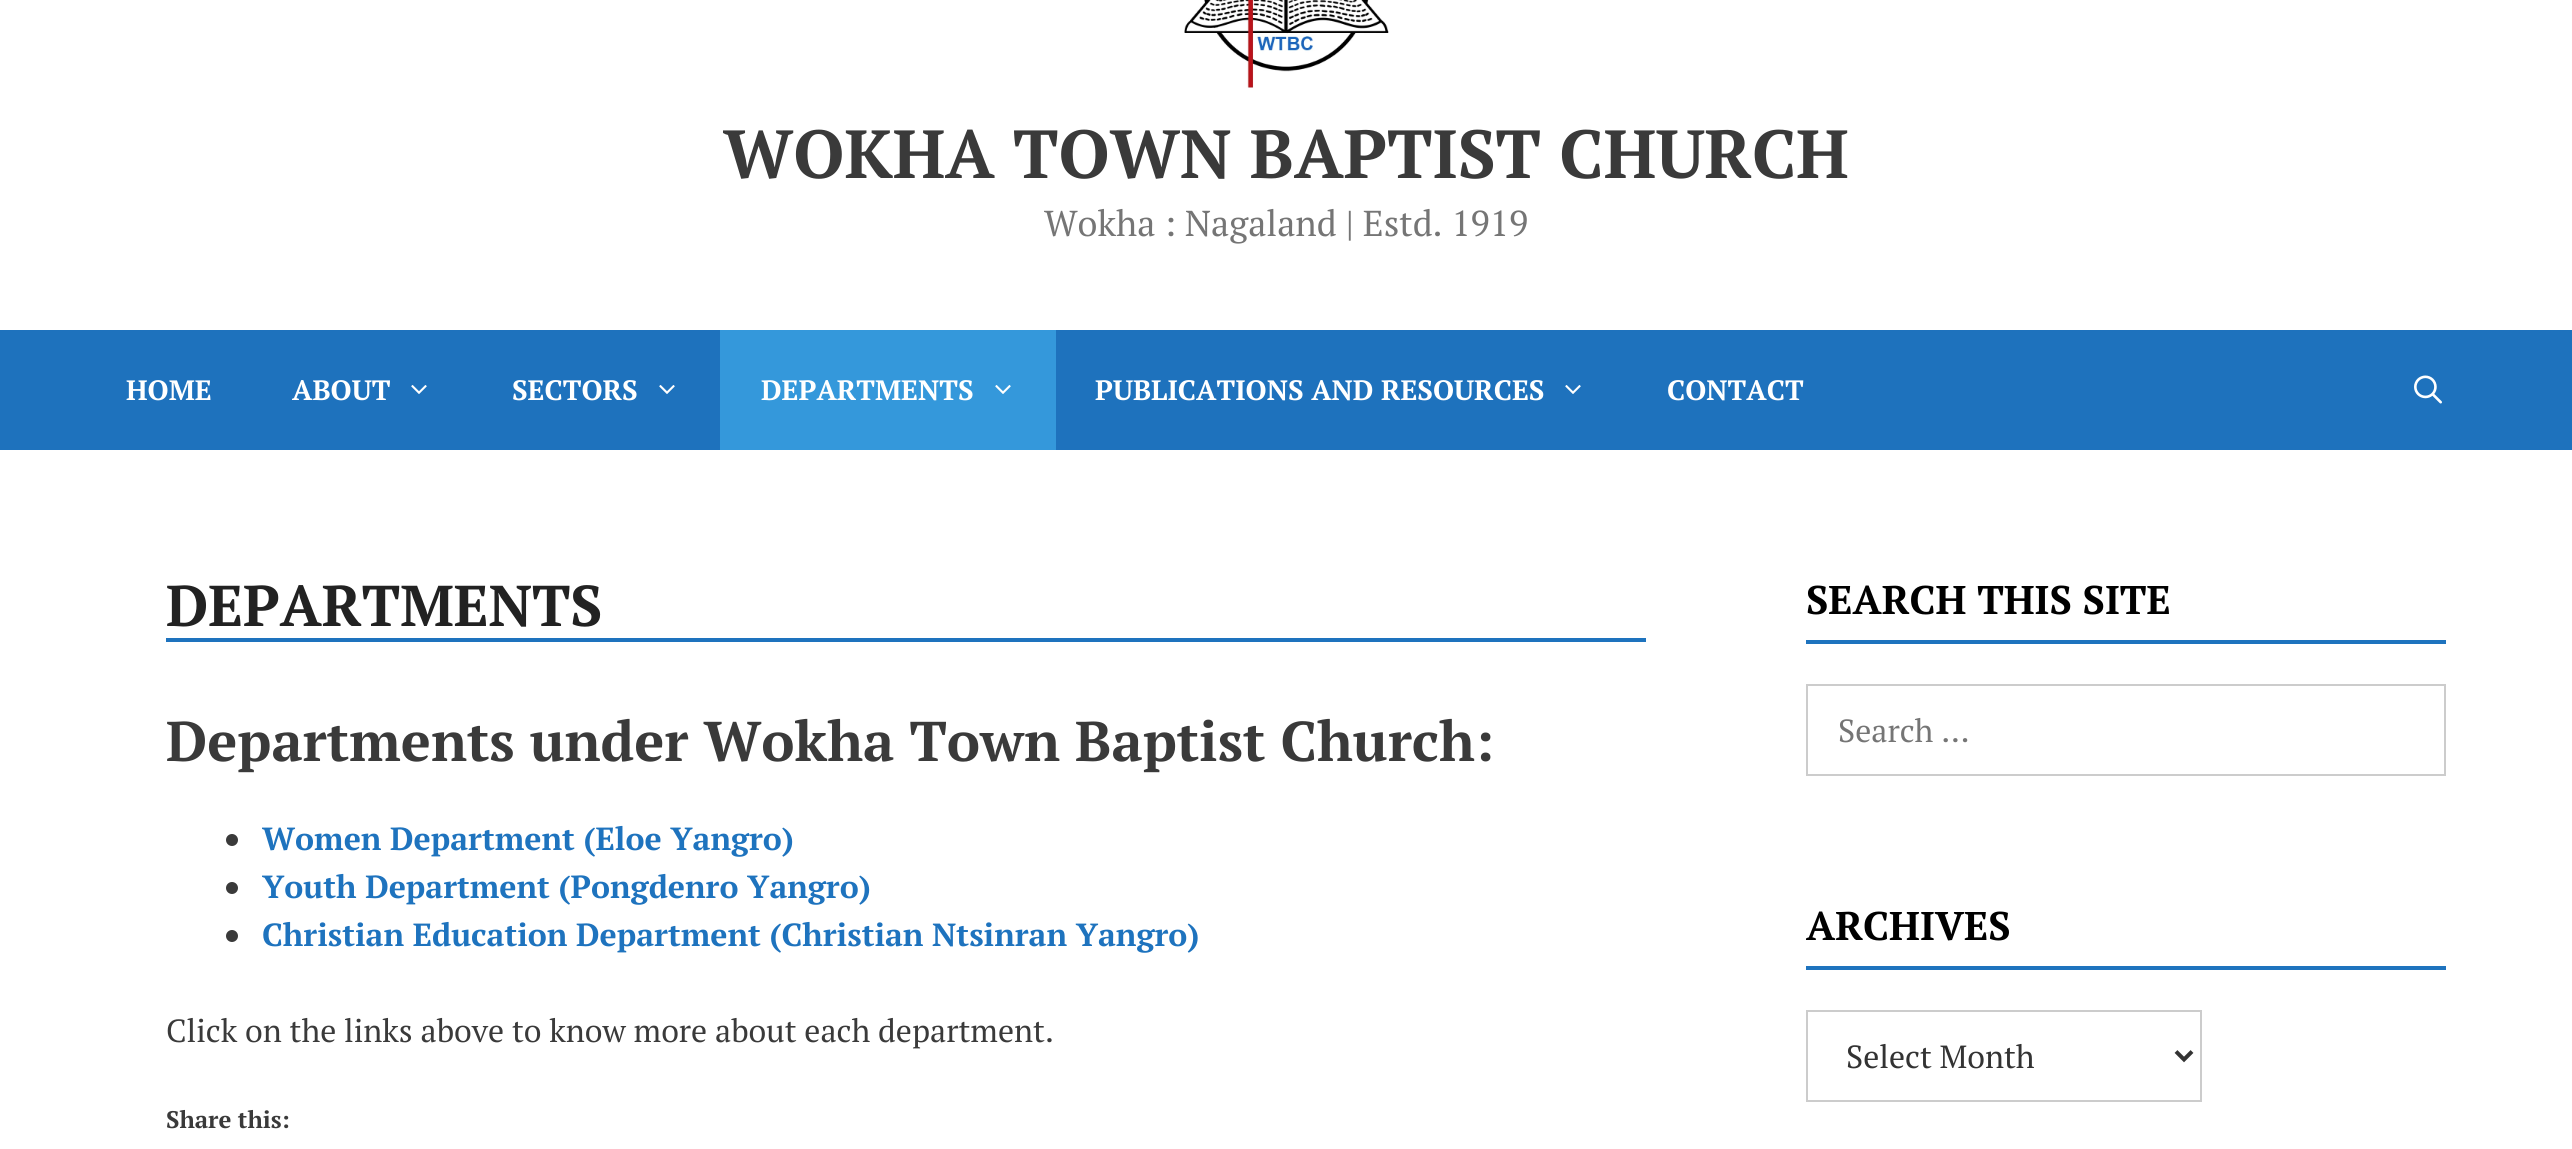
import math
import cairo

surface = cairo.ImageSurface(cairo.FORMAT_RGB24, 2572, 1149)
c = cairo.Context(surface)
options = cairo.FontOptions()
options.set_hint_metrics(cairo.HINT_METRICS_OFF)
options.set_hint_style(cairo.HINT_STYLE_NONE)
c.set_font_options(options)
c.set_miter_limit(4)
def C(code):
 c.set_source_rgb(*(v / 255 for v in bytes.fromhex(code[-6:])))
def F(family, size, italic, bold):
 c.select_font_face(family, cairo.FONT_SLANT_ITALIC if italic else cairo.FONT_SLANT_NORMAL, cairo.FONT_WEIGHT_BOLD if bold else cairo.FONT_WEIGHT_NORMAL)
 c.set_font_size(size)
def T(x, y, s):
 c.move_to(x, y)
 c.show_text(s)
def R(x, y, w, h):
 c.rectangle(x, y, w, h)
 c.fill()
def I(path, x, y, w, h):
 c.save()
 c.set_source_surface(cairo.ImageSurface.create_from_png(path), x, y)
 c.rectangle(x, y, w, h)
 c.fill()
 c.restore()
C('ffffff')
c.paint()
I('1.png',1184,0,205,88)
F('PT Serif',68,0,1)
C('3a3a3a')
T(723,178,'WOKHA TOWN BAPTIST CHURCH')
F('PT Serif',36,0,0)
C('757575')
T(1044,236,'Wokha : Nagaland | Estd. 1919')
C('1e72bd')
R(0,330,2572,120)
F('PT Serif',28,0,1)
C('ffffff')
T(126,400,'HOME')
T(292,400,'ABOUT')
I('2.png',411,385,16,9)
T(512,400,'SECTORS')
I('2.png',659,385,16,9)
C('3498db')
R(720,330,336,120)
C('ffffff')
T(761,400,'DEPARTMENTS')
I('3.png',995,385,16,9)
T(1095,400,'PUBLICATIONS AND RESOURCES')
I('2.png',1565,385,16,9)
T(1667,400,'CONTACT')
I('4.png',2414,375,28,29)
C('1e73be')
R(166,638,1480,4)
F('PT Serif',57.5,0,1)
C('222222')
T(166,626,'DEPARTMENTS')
F('PT Serif',56,0,1)
C('3a3a3a')
T(166,761,'Departments under Wokha Town Baptist Church:')
c.new_path()
c.arc(232,840,6,0,2 * math.pi)
c.fill()
F('PT Serif',32,0,1)
C('1e73be')
T(262,850,'Women Department (Eloe Yangro)')
C('3a3a3a')
c.new_path()
c.arc(232,888,6,0,2 * math.pi)
c.fill()
C('1e73be')
T(262,898,'Youth Department (Pongdenro Yangro)')
C('3a3a3a')
c.new_path()
c.arc(232,936,6,0,2 * math.pi)
c.fill()
C('1e73be')
T(262,946,'Christian Education Department (Christian Ntsinran Yangro)')
F('PT Serif',32,0,0)
C('3a3a3a')
T(166,1042,'Click on the links above to know more about each department.')
F('PT Serif',24,0,1)
T(166,1128,'Share this:')
C('1e73be')
R(1806,640,640,4)
F('PT Serif',40,0,1)
C('000000')
T(1806,614,'SEARCH THIS SITE')
c.rectangle(1807,685,638,90)
C('cccccc')
c.stroke()
F('PT Serif',32,0,0)
C('757575')
T(1838,742,'Search …')
C('1e73be')
R(1806,966,640,4)
F('PT Serif',40,0,1)
C('000000')
T(1806,940,'ARCHIVES')
c.rectangle(1807,1011,394,90)
C('cccccc')
c.stroke()
c.new_path()
c.move_to(2176,1051.5)
c.line_to(2184,1059.5)
c.line_to(2192,1051.5)
C('333333')
c.set_line_width(4)
c.stroke()
F('PT Serif',32,0,0)
T(1846,1068,'Select Month')
surface.write_to_png('o.png')
